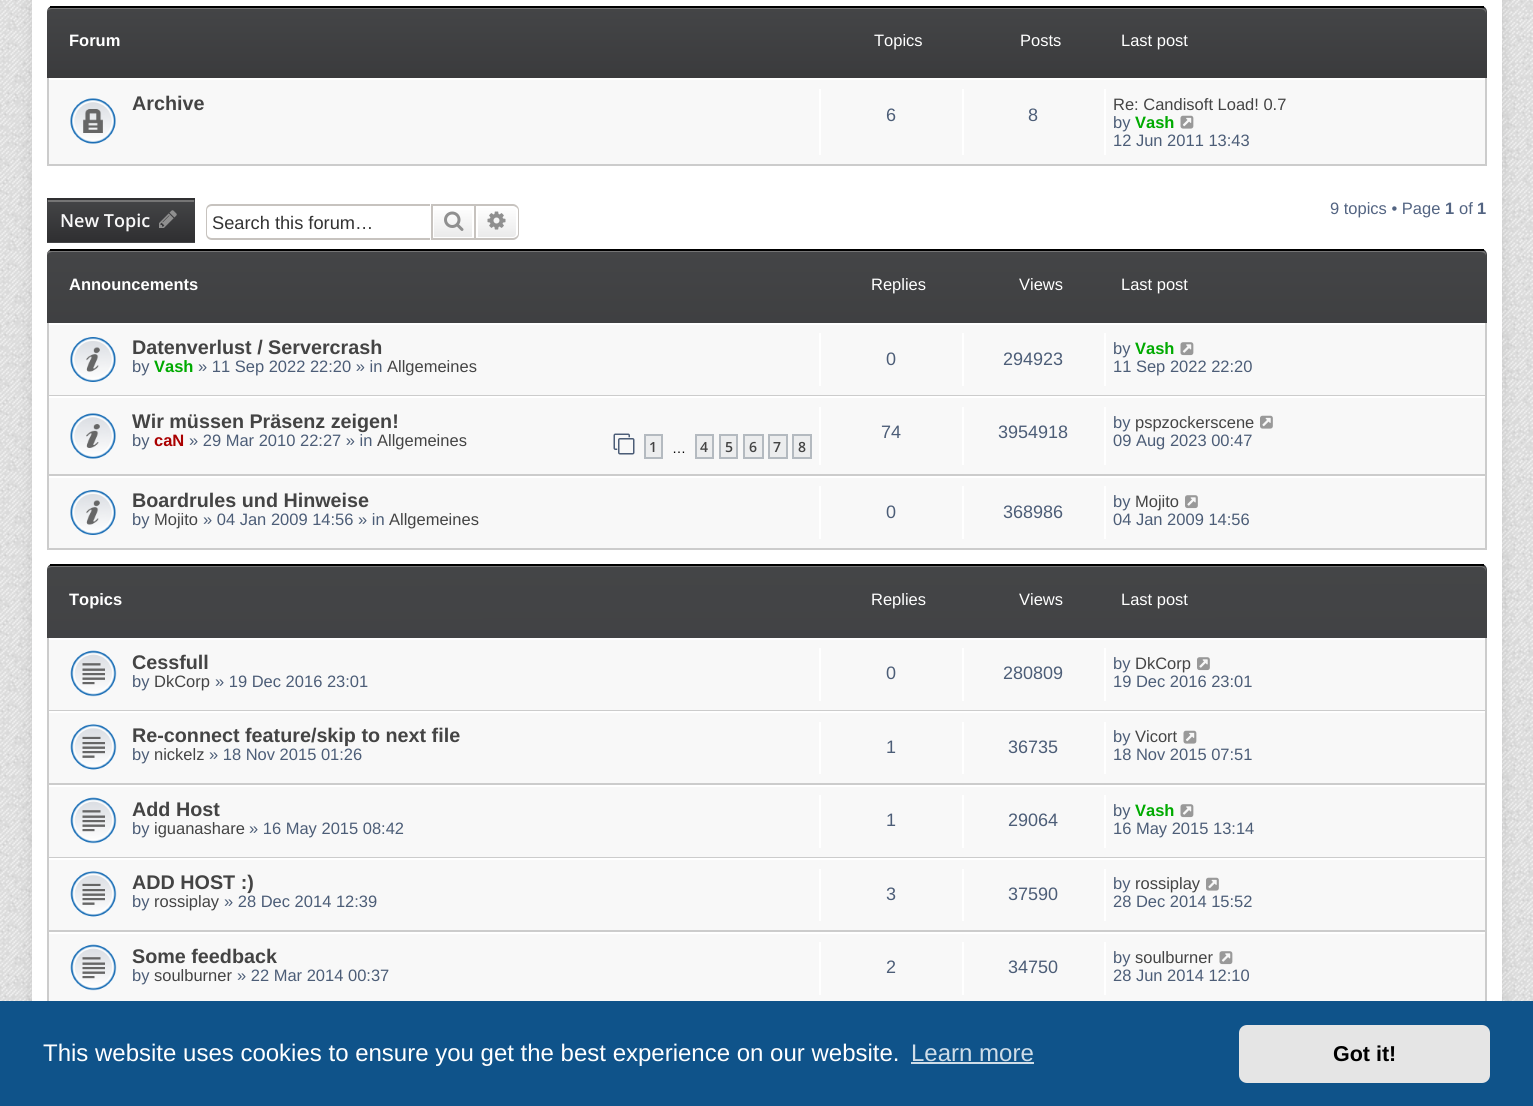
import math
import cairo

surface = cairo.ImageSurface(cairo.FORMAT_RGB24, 1533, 1106)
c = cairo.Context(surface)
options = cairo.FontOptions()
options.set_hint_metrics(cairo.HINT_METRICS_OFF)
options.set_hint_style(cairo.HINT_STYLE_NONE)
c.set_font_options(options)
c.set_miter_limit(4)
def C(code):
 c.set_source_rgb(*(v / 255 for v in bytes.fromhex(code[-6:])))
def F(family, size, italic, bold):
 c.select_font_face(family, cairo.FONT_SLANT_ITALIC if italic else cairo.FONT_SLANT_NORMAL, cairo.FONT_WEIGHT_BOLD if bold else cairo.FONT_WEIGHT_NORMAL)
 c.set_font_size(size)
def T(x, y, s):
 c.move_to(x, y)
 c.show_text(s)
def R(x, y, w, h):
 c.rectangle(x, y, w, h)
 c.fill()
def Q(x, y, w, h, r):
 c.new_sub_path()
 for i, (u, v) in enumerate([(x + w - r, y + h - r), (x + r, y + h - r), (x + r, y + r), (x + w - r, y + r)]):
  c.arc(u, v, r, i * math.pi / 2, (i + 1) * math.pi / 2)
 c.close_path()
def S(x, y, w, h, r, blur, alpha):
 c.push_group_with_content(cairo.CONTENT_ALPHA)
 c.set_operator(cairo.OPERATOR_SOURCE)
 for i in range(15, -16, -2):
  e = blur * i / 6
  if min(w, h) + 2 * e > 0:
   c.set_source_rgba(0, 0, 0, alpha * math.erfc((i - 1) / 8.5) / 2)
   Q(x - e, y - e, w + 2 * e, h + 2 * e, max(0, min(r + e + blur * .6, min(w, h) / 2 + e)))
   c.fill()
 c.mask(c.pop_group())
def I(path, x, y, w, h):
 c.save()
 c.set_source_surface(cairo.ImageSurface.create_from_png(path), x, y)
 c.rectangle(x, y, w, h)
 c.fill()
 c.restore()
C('ffffff')
c.paint()
I('1.png',0,0,1533,1001)
C('000000')
S(32,-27,1470,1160,6,7,.1)
C('ffffff')
R(32,0,1470,1001)
c.save()
c.new_path()
c.move_to(53,6)
c.line_to(1481,6)
c.curve_to(1484.5,6,1487,8.5,1487,12)
c.line_to(1487,165)
c.line_to(47,165)
c.line_to(47,12)
c.curve_to(47,8.5,49.5,6,53,6)
c.close_path()
c.clip()
gradient = cairo.LinearGradient(767,-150,767,7.5)
gradient.add_color_stop_rgba(0,0.267,0.271,0.278,1)
gradient.add_color_stop_rgba(1,0.184,0.184,0.192,1)
c.set_source(gradient)
R(47,6,1440,2)
gradient = cairo.LinearGradient(767,7.5,767,165)
gradient.add_color_stop_rgba(0,0.267,0.271,0.278,1)
gradient.add_color_stop_rgba(1,0.184,0.184,0.192,1)
c.set_source(gradient)
R(47,8,1440,70)
c.restore()
C('757575')
c.new_path()
c.move_to(52,9)
c.line_to(1480,9)
c.curve_to(1484,9,1486,11,1486,14)
c.line_to(1486,165)
c.line_to(1486,12)
c.curve_to(1486,10,1484,8,1480,8)
c.line_to(52,8)
c.curve_to(49,8,47,10,47,12)
c.curve_to(47,10,50,9,52,9)
c.close_path()
c.fill()
C('000000')
R(50,6,1434,2)
F('Liberation Sans',16.5,0,1)
C('ffffff')
T(69,46,'Forum')
F('Liberation Sans',16.5,0,0)
T(874,46,'Topics')
T(1020,46,'Posts')
T(1121,46,'Last post')
C('f8f8f8')
R(49,80,1436,84)
C('ffffff')
R(47,78,1440,2)
C('cccccc')
R(1485,78,2,87)
R(47,164,1440,2)
R(47,78,2,87)
I('2.png',70,98,46,46)
F('Liberation Sans',19.75,0,1)
C('444444')
T(132,110,'Archive')
C('ffffff')
R(819,89,2,66)
F('Liberation Sans',18,0,0)
C('4c5d77')
T(886,121,'6')
C('ffffff')
R(962,89,2,66)
C('4c5d77')
T(1028,121,'8')
C('ffffff')
R(1104,89,2,66)
F('Liberation Sans',16.5,0,0)
C('444444')
T(1113,110,'Re: Candisoft Load! 0.7')
C('4c5d77')
T(1113,128,'by')
F('Liberation Sans',16.5,0,1)
C('00aa00')
T(1135,128,'Vash')
I('3.png',1180,115,14,14)
F('Liberation Sans',16.5,0,0)
C('4c5d77')
T(1113,146,'12 Jun 2011 13:43')
C('536482')
T(1330,214,'9 topics • Page')
F('Liberation Sans',16.5,0,1)
T(1445,214,'1')
F('Liberation Sans',16.5,0,0)
T(1459,214,'of')
F('Liberation Sans',16.5,0,1)
T(1477,214,'1')
gradient = cairo.LinearGradient(121,158,121,200)
gradient.add_color_stop_rgba(0,0.267,0.271,0.278,1)
gradient.add_color_stop_rgba(1,0.184,0.184,0.192,1)
c.set_source(gradient)
R(47,198,148,2)
gradient = cairo.LinearGradient(121,200,121,242)
gradient.add_color_stop_rgba(0,0.267,0.271,0.278,1)
gradient.add_color_stop_rgba(1,0.184,0.184,0.192,1)
c.set_source(gradient)
R(47,200,148,42)
gradient = cairo.LinearGradient(121,242,121,284)
gradient.add_color_stop_rgba(0,0.267,0.271,0.278,1)
gradient.add_color_stop_rgba(1,0.184,0.184,0.192,1)
c.set_source(gradient)
R(47,242,148,1)
C('757575')
R(48,200,146,2)
F('Open Sans SemiBold',18,0,0)
C('f8f8f8')
T(60,227,'New Topic')
I('4.png',159,210,18,18)
C('c7c3bf')
c.set_fill_rule(cairo.FILL_RULE_EVEN_ODD)
c.new_path()
c.move_to(212,204)
c.line_to(430,204)
c.line_to(430,240)
c.line_to(212,240)
c.curve_to(208,240,206,237,206,234)
c.line_to(206,210)
c.curve_to(206,207,208,204,212,204)
c.close_path()
c.move_to(212,206)
c.line_to(430,206)
c.line_to(430,238)
c.line_to(212,238)
c.curve_to(209,238,207,236,207,234)
c.line_to(207,210)
c.curve_to(207,208,209,206,212,206)
c.close_path()
c.fill()
F('Liberation Sans',18.25,0,0)
C('333333')
T(212,229,'Search this forum…')
gradient = cairo.LinearGradient(453,206,453,239)
gradient.add_color_stop_rgba(0,1,1,1,1)
gradient.add_color_stop_rgba(1,0.914,0.914,0.914,1)
c.set_source(gradient)
R(434,210,38,27)
c.rectangle(432,205,43,34)
C('c7c3bf')
c.stroke()
I('5.png',444,211,20,20)
gradient = cairo.LinearGradient(497,206,497,239)
gradient.add_color_stop_rgba(0,1,1,1,1)
gradient.add_color_stop_rgba(1,0.914,0.914,0.914,1)
c.set_source(gradient)
c.new_path()
c.move_to(477,207)
c.line_to(513,207)
c.curve_to(515,207,517,209,517,211)
c.line_to(517,234)
c.curve_to(517,236,515,238,513,238)
c.line_to(477,238)
c.close_path()
c.fill_preserve()
C('ffffff')
c.stroke()
C('c7c3bf')
c.new_path()
c.move_to(476,204)
c.line_to(513,204)
c.curve_to(516,204,519,207,519,210)
c.line_to(519,234)
c.curve_to(519,237,516,240,513,240)
c.line_to(476,240)
c.close_path()
c.move_to(476,206)
c.line_to(513,206)
c.curve_to(515,206,518,208,518,210)
c.line_to(518,234)
c.curve_to(518,236,515,238,513,238)
c.line_to(476,238)
c.close_path()
c.fill()
I('6.png',487,211,19,19)
c.save()
c.set_fill_rule(cairo.FILL_RULE_WINDING)
c.new_path()
c.move_to(53,249)
c.line_to(1481,249)
c.curve_to(1484.5,249,1487,251.5,1487,255)
c.line_to(1487,549)
c.line_to(47,549)
c.line_to(47,255)
c.curve_to(47,251.5,49.5,249,53,249)
c.close_path()
c.clip()
gradient = cairo.LinearGradient(767,-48,767,251)
gradient.add_color_stop_rgba(0,0.267,0.271,0.278,1)
gradient.add_color_stop_rgba(1,0.184,0.184,0.192,1)
c.set_source(gradient)
R(47,249,1440,2)
gradient = cairo.LinearGradient(767,250,767,549)
gradient.add_color_stop_rgba(0,0.267,0.271,0.278,1)
gradient.add_color_stop_rgba(1,0.184,0.184,0.192,1)
c.set_source(gradient)
R(47,251,1440,72)
c.restore()
C('757575')
c.set_fill_rule(cairo.FILL_RULE_WINDING)
c.new_path()
c.move_to(52,252)
c.line_to(1480,252)
c.curve_to(1484,252,1486,254,1486,256)
c.line_to(1486,549)
c.line_to(1486,255)
c.curve_to(1486,253,1484,250,1480,250)
c.line_to(52,250)
c.curve_to(49,250,47,252,47,255)
c.curve_to(48,253,50,252,52,252)
c.close_path()
c.fill()
C('000000')
R(50,249,1434,2)
F('Liberation Sans',16.5,0,1)
C('ffffff')
T(69,290,'Announcements')
F('Liberation Sans',16.5,0,0)
T(871,290,'Replies')
T(1019,290,'Views')
T(1121,290,'Last post')
C('f8f8f8')
R(49,325,1436,70)
C('ffffff')
R(47,323,1440,2)
C('cccccc')
R(1485,323,2,73)
R(47,395,1440,1)
R(47,323,2,73)
I('7.png',70,337,46,45)
F('Liberation Sans',19.75,0,1)
C('444444')
T(132,354,'Datenverlust / Servercrash')
F('Liberation Sans',16.5,0,0)
C('4c5d77')
T(132,372,'by')
F('Liberation Sans',16.5,0,1)
C('00aa00')
T(154,372,'Vash')
F('Liberation Sans',16.5,0,0)
C('4c5d77')
T(198,372,'» 11 Sep 2022 22:20 » in')
C('444444')
T(387,372,'Allgemeines')
C('ffffff')
R(819,333,2,53)
F('Liberation Sans',18,0,0)
C('4c5d77')
T(886,365,'0')
C('ffffff')
R(962,333,2,53)
C('4c5d77')
T(1003,365,'294923')
C('ffffff')
R(1104,333,2,53)
F('Liberation Sans',16.5,0,0)
C('4c5d77')
T(1113,354,'by')
F('Liberation Sans',16.5,0,1)
C('00aa00')
T(1135,354,'Vash')
I('8.png',1180,342,14,14)
F('Liberation Sans',16.5,0,0)
C('4c5d77')
T(1113,372,'11 Sep 2022 22:20')
C('f8f8f8')
R(49,398,1436,76)
C('ffffff')
R(47,396,1440,2)
C('cccccc')
R(1485,396,2,80)
R(47,474,1440,2)
R(47,396,2,80)
I('9.png',70,413,46,46)
F('Liberation Sans',19.75,0,1)
C('444444')
T(132,428,'Wir müssen Präsenz zeigen!')
F('Liberation Sans',16.5,0,0)
C('4c5d77')
T(132,446,'by')
F('Liberation Sans',16.5,0,1)
C('aa0000')
T(154,446,'caN')
F('Liberation Sans',16.5,0,0)
C('4c5d77')
T(189,446,'» 29 Mar 2010 22:27 » in')
C('444444')
T(377,446,'Allgemeines')
I('10.png',613,433,22,22)
C('ecedee')
c.rectangle(645,435,17,23)
c.fill_preserve()
C('b4bac0')
c.stroke()
F('Open Sans SemiBold',14,0,0)
C('444444')
T(649,452,'1')
F('Liberation Sans',14,0,0)
C('000000')
T(672,453,'…')
C('ecedee')
c.rectangle(696,435,17,23)
c.fill_preserve()
C('b4bac0')
c.stroke()
F('Open Sans SemiBold',14,0,0)
C('444444')
T(700,452,'4')
C('ecedee')
c.rectangle(720,435,17,23)
c.fill_preserve()
C('b4bac0')
c.stroke()
C('444444')
T(725,452,'5')
C('ecedee')
c.rectangle(744,435,19,23)
c.fill_preserve()
C('b4bac0')
c.stroke()
C('444444')
T(749,452,'6')
C('ecedee')
c.rectangle(769,435,18,23)
c.fill_preserve()
C('b4bac0')
c.stroke()
C('444444')
T(773,452,'7')
C('ecedee')
c.rectangle(793,435,18,23)
c.fill_preserve()
C('b4bac0')
c.stroke()
C('444444')
T(798,452,'8')
C('ffffff')
R(819,407,2,58)
F('Liberation Sans',18,0,0)
C('4c5d77')
T(881,438,'74')
C('ffffff')
R(962,407,2,58)
C('4c5d77')
T(998,438,'3954918')
C('ffffff')
R(1104,407,2,58)
F('Liberation Sans',16.5,0,0)
C('4c5d77')
T(1113,428,'by')
C('444444')
T(1135,428,'pspzockerscene')
I('11.png',1260,415,13,14)
C('4c5d77')
T(1113,446,'09 Aug 2023 00:47')
C('f8f8f8')
R(49,478,1436,70)
C('ffffff')
R(47,476,1440,2)
C('cccccc')
R(1485,476,2,73)
R(47,548,1440,2)
R(47,476,2,73)
I('7.png',70,490,46,45)
F('Liberation Sans',19.75,0,1)
C('444444')
T(132,507,'Boardrules und Hinweise')
F('Liberation Sans',16.5,0,0)
C('4c5d77')
T(132,525,'by')
C('444444')
T(154,525,'Mojito')
C('4c5d77')
T(203,525,'» 04 Jan 2009 14:56 » in')
C('444444')
T(389,525,'Allgemeines')
C('ffffff')
R(819,486,2,53)
F('Liberation Sans',18,0,0)
C('4c5d77')
T(886,518,'0')
C('ffffff')
R(962,486,2,53)
C('4c5d77')
T(1003,518,'368986')
C('ffffff')
R(1104,486,2,53)
F('Liberation Sans',16.5,0,0)
C('4c5d77')
T(1113,507,'by')
C('444444')
T(1135,507,'Mojito')
I('12.png',1185,495,13,14)
C('4c5d77')
T(1113,525,'04 Jan 2009 14:56')
c.save()
c.new_path()
c.move_to(53,564)
c.line_to(1481,564)
c.curve_to(1484.5,564,1487,566.5,1487,570)
c.line_to(1487,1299)
c.line_to(47,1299)
c.line_to(47,570)
c.curve_to(47,566.5,49.5,564,53,564)
c.close_path()
c.clip()
gradient = cairo.LinearGradient(766,-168,767,566)
gradient.add_color_stop_rgba(0,0.267,0.271,0.278,1)
gradient.add_color_stop_rgba(1,0.184,0.184,0.192,1)
c.set_source(gradient)
R(47,564,1440,2)
gradient = cairo.LinearGradient(766,565,767,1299)
gradient.add_color_stop_rgba(0,0.267,0.271,0.278,1)
gradient.add_color_stop_rgba(1,0.184,0.184,0.192,1)
c.set_source(gradient)
R(47,566,1440,72)
c.restore()
C('757575')
c.new_path()
c.move_to(52,567)
c.line_to(1480,567)
c.curve_to(1484,567,1486,569,1486,572)
c.line_to(1486,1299)
c.line_to(1486,570)
c.curve_to(1486,568,1484,566,1480,566)
c.line_to(52,566)
c.curve_to(49,566,47,568,47,570)
c.curve_to(47,568,50,567,52,567)
c.close_path()
c.fill()
C('000000')
R(50,564,1434,2)
F('Liberation Sans',16.5,0,1)
C('ffffff')
T(69,605,'Topics')
F('Liberation Sans',16.5,0,0)
T(871,605,'Replies')
T(1019,605,'Views')
T(1121,605,'Last post')
C('f8f8f8')
R(49,640,1436,70)
C('ffffff')
R(47,638,1440,2)
C('cccccc')
R(1485,638,2,73)
R(47,710,1440,1)
R(47,638,2,73)
I('13.png',70,650,47,47)
F('Liberation Sans',19.75,0,1)
C('444444')
T(132,669,'Cessfull')
F('Liberation Sans',16.5,0,0)
C('4c5d77')
T(132,687,'by')
C('444444')
T(154,687,'DkCorp')
C('4c5d77')
T(215,687,'» 19 Dec 2016 23:01')
C('ffffff')
R(819,648,2,53)
F('Liberation Sans',18,0,0)
C('4c5d77')
T(886,679,'0')
C('ffffff')
R(962,648,2,53)
C('4c5d77')
T(1003,679,'280809')
C('ffffff')
R(1104,648,2,53)
F('Liberation Sans',16.5,0,0)
C('4c5d77')
T(1113,669,'by')
C('444444')
T(1135,669,'DkCorp')
I('12.png',1197,657,13,14)
C('4c5d77')
T(1113,687,'19 Dec 2016 23:01')
C('f8f8f8')
R(49,713,1436,70)
C('ffffff')
R(47,711,1440,2)
C('cccccc')
R(1485,711,2,74)
R(47,783,1440,2)
R(47,711,2,74)
I('14.png',70,724,47,46)
F('Liberation Sans',19.75,0,1)
C('444444')
T(132,742,'Re-connect feature/skip to next file')
F('Liberation Sans',16.5,0,0)
C('4c5d77')
T(132,760,'by')
C('444444')
T(154,760,'nickelz')
C('4c5d77')
T(209,760,'» 18 Nov 2015 01:26')
C('ffffff')
R(819,722,2,52)
F('Liberation Sans',18,0,0)
C('4c5d77')
T(886,753,'1')
C('ffffff')
R(962,722,2,52)
C('4c5d77')
T(1008,753,'36735')
C('ffffff')
R(1104,722,2,52)
F('Liberation Sans',16.5,0,0)
C('4c5d77')
T(1113,742,'by')
C('444444')
T(1135,742,'Vicort')
I('3.png',1183,730,14,14)
C('4c5d77')
T(1113,760,'18 Nov 2015 07:51')
C('f8f8f8')
R(49,787,1436,70)
C('ffffff')
R(47,785,1440,2)
C('cccccc')
R(1485,785,2,73)
R(47,857,1440,1)
R(47,785,2,73)
I('13.png',70,797,47,47)
F('Liberation Sans',19.75,0,1)
C('444444')
T(132,816,'Add Host')
F('Liberation Sans',16.5,0,0)
C('4c5d77')
T(132,834,'by')
C('444444')
T(154,834,'iguanashare')
C('4c5d77')
T(249,834,'» 16 May 2015 08:42')
C('ffffff')
R(819,795,2,53)
F('Liberation Sans',18,0,0)
C('4c5d77')
T(886,826,'1')
C('ffffff')
R(962,795,2,53)
C('4c5d77')
T(1008,826,'29064')
C('ffffff')
R(1104,795,2,53)
F('Liberation Sans',16.5,0,0)
C('4c5d77')
T(1113,816,'by')
F('Liberation Sans',16.5,0,1)
C('00aa00')
T(1135,816,'Vash')
I('8.png',1180,804,14,14)
F('Liberation Sans',16.5,0,0)
C('4c5d77')
T(1113,834,'16 May 2015 13:14')
C('f8f8f8')
R(49,860,1436,70)
C('ffffff')
R(47,858,1440,2)
C('cccccc')
R(1485,858,2,74)
R(47,930,1440,2)
R(47,858,2,74)
I('14.png',70,871,47,46)
F('Liberation Sans',19.75,0,1)
C('444444')
T(132,889,'ADD HOST :)')
F('Liberation Sans',16.5,0,0)
C('4c5d77')
T(132,907,'by')
C('444444')
T(154,907,'rossiplay')
C('4c5d77')
T(224,907,'» 28 Dec 2014 12:39')
C('ffffff')
R(819,869,2,52)
F('Liberation Sans',18,0,0)
C('4c5d77')
T(886,900,'3')
C('ffffff')
R(962,869,2,52)
C('4c5d77')
T(1008,900,'37590')
C('ffffff')
R(1104,869,2,52)
F('Liberation Sans',16.5,0,0)
C('4c5d77')
T(1113,889,'by')
C('444444')
T(1135,889,'rossiplay')
I('11.png',1206,877,13,14)
C('4c5d77')
T(1113,907,'28 Dec 2014 15:52')
C('f8f8f8')
R(49,934,1436,67)
C('ffffff')
R(47,932,1440,2)
C('cccccc')
R(1485,932,2,73)
R(47,932,2,73)
I('13.png',70,944,47,47)
F('Liberation Sans',19.75,0,1)
C('444444')
T(132,963,'Some feedback')
F('Liberation Sans',16.5,0,0)
C('4c5d77')
T(132,981,'by')
C('444444')
T(154,981,'soulburner')
C('4c5d77')
T(237,981,'» 22 Mar 2014 00:37')
C('ffffff')
R(819,942,2,53)
F('Liberation Sans',18,0,0)
C('4c5d77')
T(886,973,'2')
C('ffffff')
R(962,942,2,53)
C('4c5d77')
T(1008,973,'34750')
C('ffffff')
R(1104,942,2,53)
F('Liberation Sans',16.5,0,0)
C('4c5d77')
T(1113,963,'by')
C('444444')
T(1135,963,'soulburner')
I('8.png',1219,951,14,14)
C('4c5d77')
T(1113,981,'28 Jun 2014 12:10')
C('0f538a')
R(0,1001,1533,105)
F('Liberation Sans',24,0,0)
C('ffffff')
T(43,1061,'This website uses cookies to ensure you get the best experience on our website.')
C('cfdde8')
T(911,1061,'Learn more')
R(911,1062,123,2)
C('e5e5e5')
Q(1239,1025,251,58,8)
c.fill()
F('Liberation Sans',21.5,0,1)
C('000000')
T(1333,1061,'Got it!')
surface.write_to_png('o.png')
